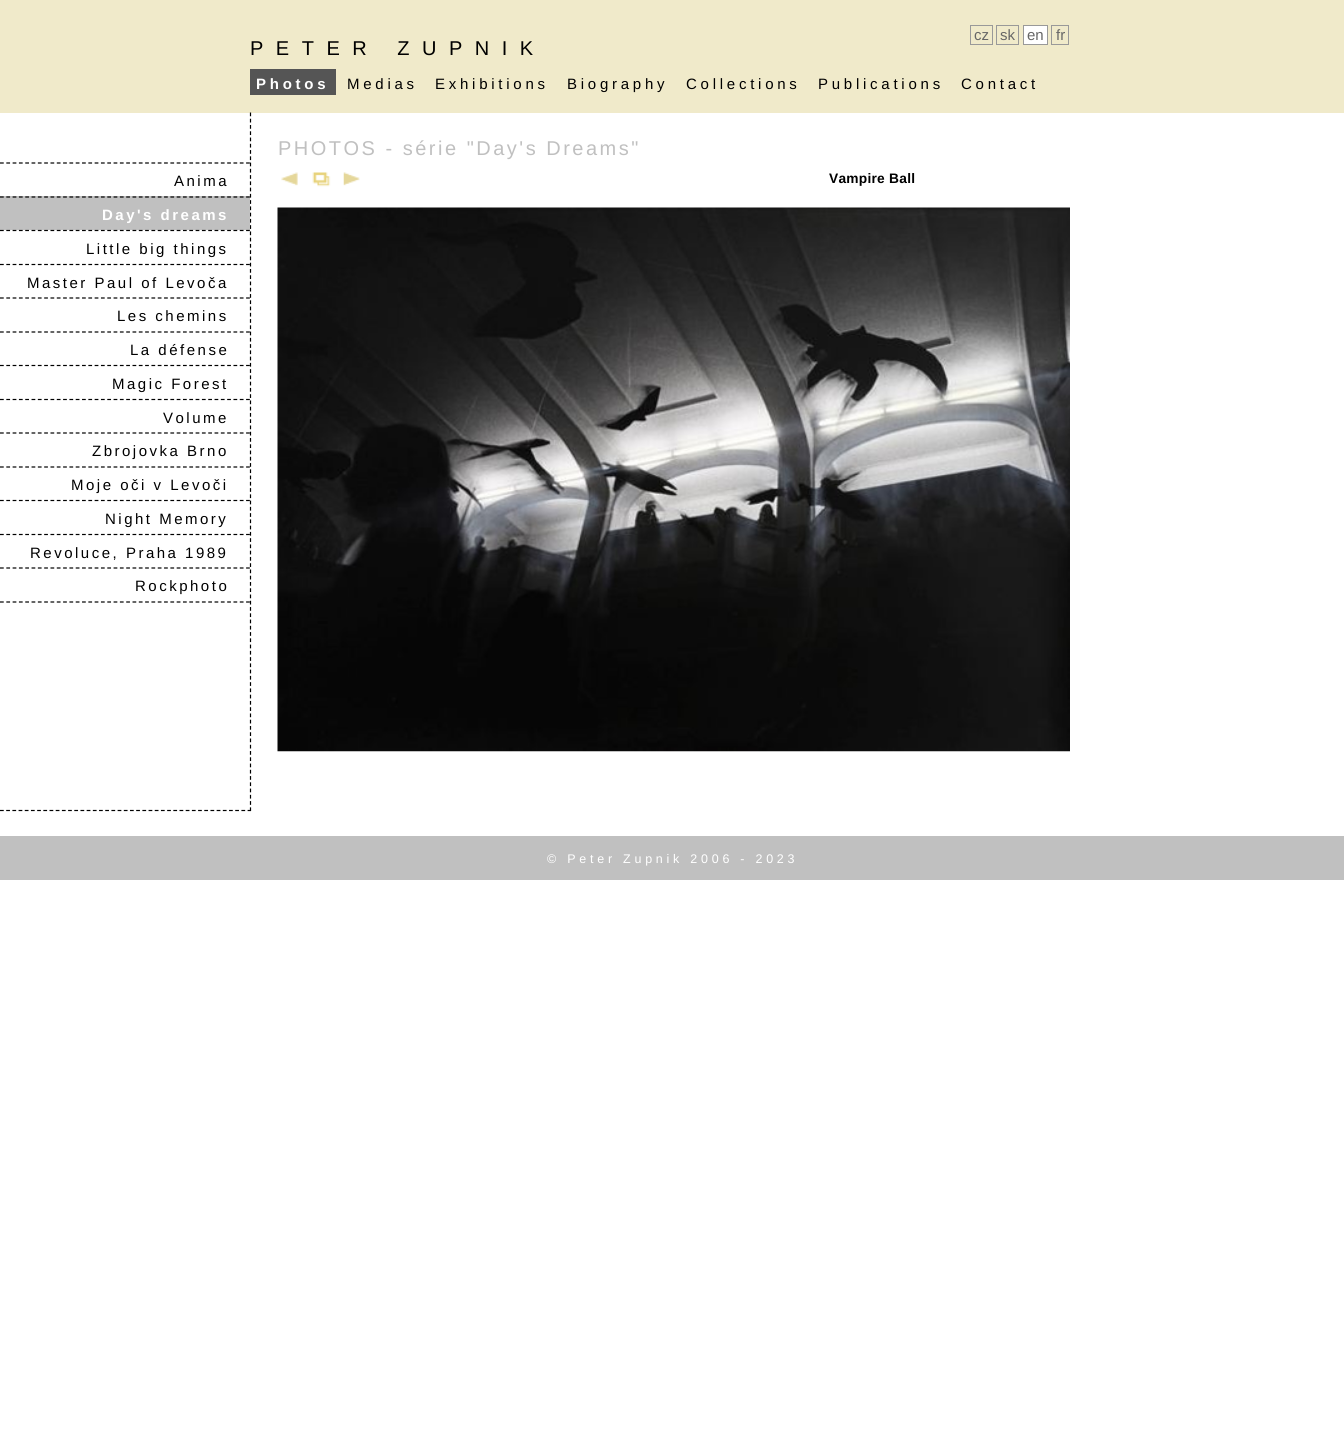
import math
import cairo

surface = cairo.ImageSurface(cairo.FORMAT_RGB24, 1344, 1433)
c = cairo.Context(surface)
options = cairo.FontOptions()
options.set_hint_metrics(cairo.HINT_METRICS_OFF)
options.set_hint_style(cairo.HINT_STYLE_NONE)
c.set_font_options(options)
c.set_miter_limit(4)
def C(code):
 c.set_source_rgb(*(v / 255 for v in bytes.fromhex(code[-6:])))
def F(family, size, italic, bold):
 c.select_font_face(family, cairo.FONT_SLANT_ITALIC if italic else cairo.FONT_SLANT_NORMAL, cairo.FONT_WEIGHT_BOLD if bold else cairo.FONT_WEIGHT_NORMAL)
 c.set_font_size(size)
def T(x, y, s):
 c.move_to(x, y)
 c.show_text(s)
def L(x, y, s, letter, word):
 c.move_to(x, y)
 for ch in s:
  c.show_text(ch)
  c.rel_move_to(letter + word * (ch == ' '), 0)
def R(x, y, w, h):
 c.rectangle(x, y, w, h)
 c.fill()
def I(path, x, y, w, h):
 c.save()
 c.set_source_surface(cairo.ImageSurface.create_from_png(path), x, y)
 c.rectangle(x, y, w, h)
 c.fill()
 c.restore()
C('ffffff')
c.paint()
C('f0eaca')
R(0,0,1344,113)
c.rectangle(970.5,25.5,22,19)
C('999999')
c.set_line_width(1)
c.stroke()
F('Liberation Sans',15,0,0)
C('666666')
T(974,40,'cz')
c.rectangle(996.5,25.5,22,19)
C('999999')
c.stroke()
C('666666')
T(1000,40,'sk')
C('ffffff')
c.rectangle(1023.5,25.5,24,19)
c.fill_preserve()
C('999999')
c.stroke()
C('666666')
T(1027,40,'en')
c.rectangle(1051.5,25.5,17,19)
C('999999')
c.stroke()
C('666666')
T(1056,40,'fr')
F('Liberation Sans',20,0,0)
C('000000')
L(250,55,'PETER ZUPNIK',12.5,0)
C('555555')
R(250,69,86,26)
F('Liberation Sans',15,0,1)
C('ffffff')
L(256,89,'Photos',3.75,0)
F('Liberation Sans',15,0,0)
C('000000')
L(347,89,'Medias',3.75,0)
L(435,89,'Exhibitions',3.75,0)
L(567,89,'Biography',3.75,0)
L(686,89,'Collections',3.75,0)
L(818,89,'Publications',3.75,0)
L(961,89,'Contact',3.75,0)
F('Liberation Sans',20,0,0)
C('c0c0c0')
L(278,155,'PHOTOS - série "Day\'s Dreams"',2.5,0)
I('1.png',281,172,17,14)
I('2.png',312,172,19,15)
I('3.png',343,172,17,14)
F('Liberation Sans',13.75,0,1)
C('000000')
L(829,183,'Vampire Ball',.25,0)
I('4.png',277,207,793,545)
c.new_path()
c.move_to(250.5,112.5)
c.line_to(250.5,811)
c.set_line_width(1.2)
c.set_dash([3.75,2.51])
c.stroke()
c.new_path()
c.move_to(0,810.5)
c.line_to(251,810.5)
c.set_dash([3.75,2.44])
c.stroke()
c.new_path()
c.move_to(0,163)
c.line_to(250,163)
c.set_dash([3.75,2.56])
c.stroke()
F('Liberation Sans',15,0,0)
L(174,186,'Anima',2.5,0)
C('c0c0c0')
R(0,196,250,34)
c.new_path()
c.move_to(0,197)
c.line_to(250,197)
C('000000')
c.stroke()
F('Liberation Sans',15,0,1)
C('ffffff')
L(102,220,'Day\'s dreams',2.5,0)
c.new_path()
c.move_to(0,230.5)
c.line_to(250,230.5)
C('000000')
c.stroke()
F('Liberation Sans',15,0,0)
L(86,254,'Little big things',2.5,0)
c.new_path()
c.move_to(0,264.5)
c.line_to(250,264.5)
c.stroke()
L(27,288,'Master Paul of Levoča',2.5,0)
c.new_path()
c.move_to(0,298)
c.line_to(250,298)
c.stroke()
L(117,321,'Les chemins',2.5,0)
c.new_path()
c.move_to(0,332)
c.line_to(250,332)
c.stroke()
L(130,355,'La défense',2.5,0)
c.new_path()
c.move_to(0,365.5)
c.line_to(250,365.5)
c.stroke()
L(112,389,'Magic Forest',2.5,0)
c.new_path()
c.move_to(0,399.5)
c.line_to(250,399.5)
c.stroke()
L(163,423,'Volume',2.5,0)
c.new_path()
c.move_to(0,433)
c.line_to(250,433)
c.stroke()
L(92,456,'Zbrojovka Brno',2.5,0)
c.new_path()
c.move_to(0,467)
c.line_to(250,467)
c.stroke()
L(71,490,'Moje oči v Levoči',2.5,0)
c.new_path()
c.move_to(0,500.5)
c.line_to(250,500.5)
c.stroke()
L(105,524,'Night Memory',2.5,0)
c.new_path()
c.move_to(0,534.5)
c.line_to(250,534.5)
c.stroke()
L(30,558,'Revoluce, Praha 1989',2.5,0)
c.new_path()
c.move_to(0,568)
c.line_to(250,568)
c.stroke()
L(135,591,'Rockphoto',2.5,0)
c.new_path()
c.move_to(0,602)
c.line_to(250,602)
c.stroke()
C('c0c0c0')
R(0,836,1344,44)
F('Liberation Sans',12.5,0,0)
C('ffffff')
L(547,863,'© Peter Zupnik 2006 - 2023',3.75,0)
surface.write_to_png('o.png')
